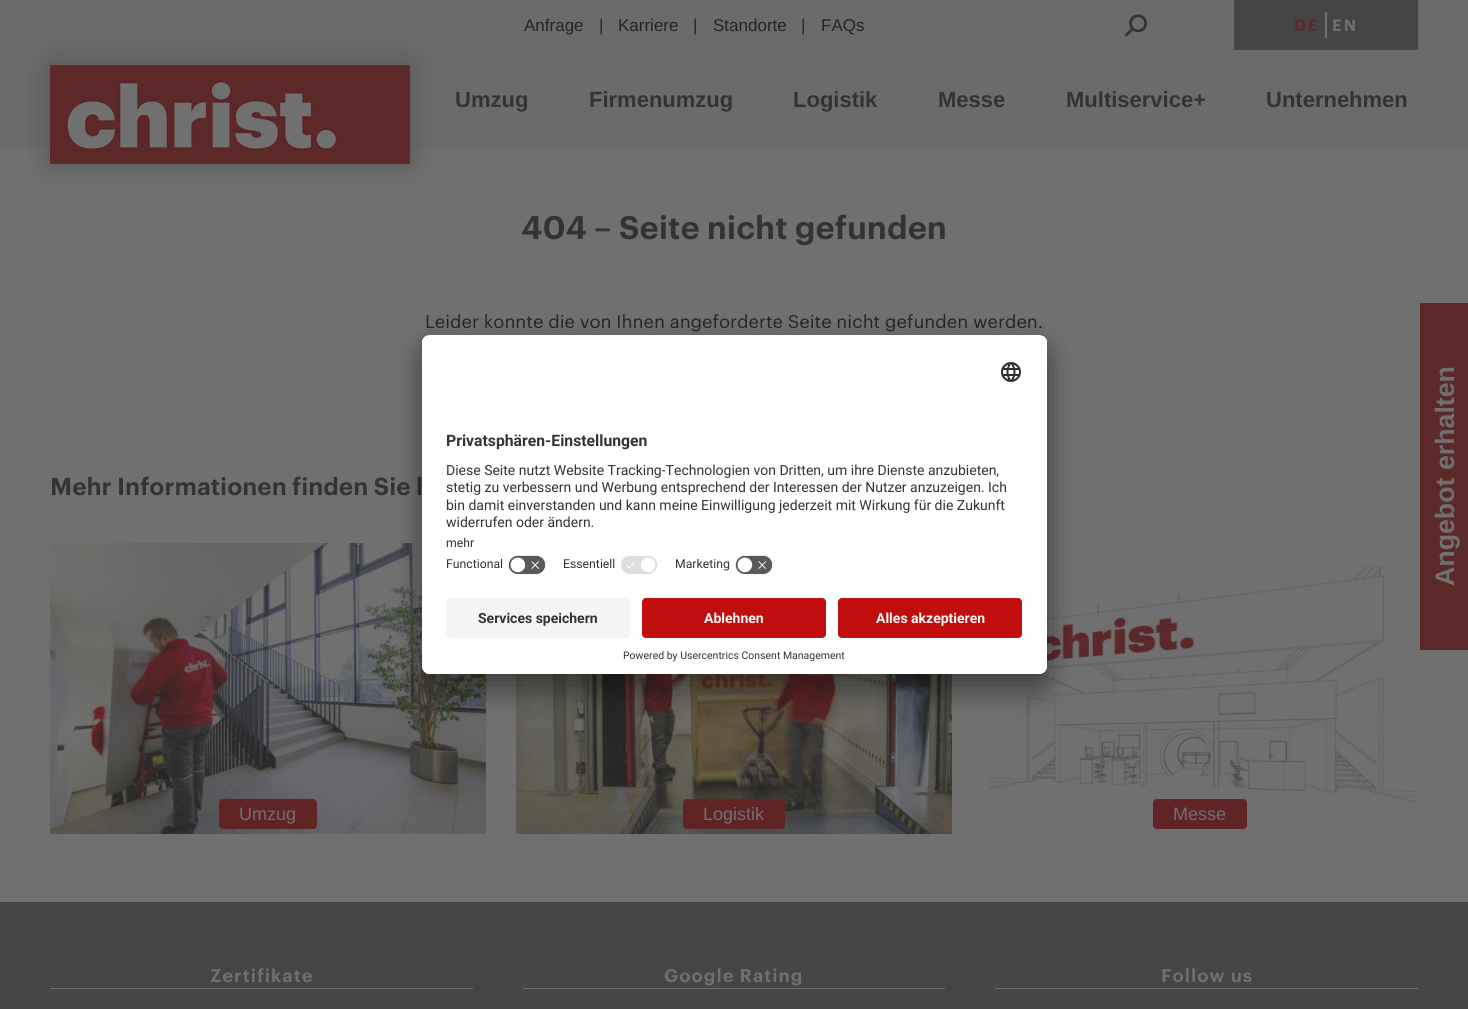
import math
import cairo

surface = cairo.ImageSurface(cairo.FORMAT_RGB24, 1468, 1009)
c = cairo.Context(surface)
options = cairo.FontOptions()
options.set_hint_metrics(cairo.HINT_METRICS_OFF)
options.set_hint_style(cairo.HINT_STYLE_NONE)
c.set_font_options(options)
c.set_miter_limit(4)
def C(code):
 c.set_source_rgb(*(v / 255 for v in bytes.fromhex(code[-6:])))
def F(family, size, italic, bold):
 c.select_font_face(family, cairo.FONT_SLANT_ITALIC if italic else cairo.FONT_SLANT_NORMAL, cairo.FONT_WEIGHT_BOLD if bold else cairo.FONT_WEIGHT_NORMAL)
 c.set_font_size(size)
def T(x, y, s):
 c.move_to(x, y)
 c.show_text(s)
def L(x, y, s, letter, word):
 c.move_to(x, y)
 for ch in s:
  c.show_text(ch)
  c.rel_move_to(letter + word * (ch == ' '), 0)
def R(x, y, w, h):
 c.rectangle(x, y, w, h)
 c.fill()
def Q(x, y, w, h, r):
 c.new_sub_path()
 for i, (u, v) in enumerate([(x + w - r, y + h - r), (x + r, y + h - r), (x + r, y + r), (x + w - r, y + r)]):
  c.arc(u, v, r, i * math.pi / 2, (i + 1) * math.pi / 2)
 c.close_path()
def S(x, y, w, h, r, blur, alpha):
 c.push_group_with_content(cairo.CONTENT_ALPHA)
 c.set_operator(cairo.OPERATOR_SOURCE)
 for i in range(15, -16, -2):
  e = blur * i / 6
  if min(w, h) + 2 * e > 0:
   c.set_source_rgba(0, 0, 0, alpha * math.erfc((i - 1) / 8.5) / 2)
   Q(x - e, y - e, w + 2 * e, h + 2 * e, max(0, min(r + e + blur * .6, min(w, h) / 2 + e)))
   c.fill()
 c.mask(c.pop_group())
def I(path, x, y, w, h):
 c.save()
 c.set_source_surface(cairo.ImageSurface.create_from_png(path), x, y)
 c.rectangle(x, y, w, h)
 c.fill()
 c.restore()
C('707070')
c.paint()
C('6b6b6b')
R(0,0,1468,149)
F('Liberation Sans',17,0,0)
C('242424')
T(524,31,'Anfrage')
T(599,31,'|')
T(618,31,'Karriere')
T(693,31,'|')
T(713,31,'Standorte')
T(801,31,'|')
T(821,31,'FAQs')
I('1.png',1125,14,22,23)
C('454545')
R(1234,0,184,50)
F('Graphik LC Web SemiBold',16,0,0)
C('5d2828')
L(1294,31,'DE',2,0)
C('707070')
R(1325,12,2,26)
L(1332,31,'EN',2,0)
C('535353')
S(50,65,360,99,0,14,1)
I('2.png',50,65,360,99)
F('Liberation Sans',22,0,1)
C('333333')
T(455,107,'Umzug')
T(589,107,'Firmenumzug')
T(793,107,'Logistik')
T(938,107,'Messe')
T(1066,107,'Multiservice+')
T(1266,107,'Unternehmen')
F('Graphik LC Web SemiBold',32,0,0)
T(521,239,'404 – Seite nicht gefunden')
F('Graphik LC Web',18,0,0)
C('242424')
T(425,328,'Leider konnte die von Ihnen angeforderte Seite nicht gefunden werden.')
F('Graphik LC Web SemiBold',24,0,0)
C('333333')
T(50,495,'Mehr Informationen finden Sie h')
I('3.png',50,543,436,291)
C('612424')
Q(219,799,98,30,4)
c.fill()
F('Liberation Sans',18,0,0)
C('707070')
T(239,820,'Umzug')
I('4.png',516,674,436,160)
C('612424')
Q(683,799,102,30,4)
c.fill()
C('707070')
T(703,820,'Logistik')
I('5.png',988,565,430,240)
C('612424')
Q(1153,799,94,30,4)
c.fill()
C('707070')
T(1173,820,'Messe')
C('454545')
R(0,902,1468,107)
C('707070')
R(50,988,423,1)
F('Graphik LC Web SemiBold',18,0,0)
L(210,982,'Zertifikate',1,0)
R(523,988,422,1)
L(664,982,'Google Rating',1,0)
R(995,988,423,1)
L(1161,982,'Follow us',1,0)
C('5d2828')
R(1420,303,48,347)
F('Liberation Sans',26.75,0,1)
C('707070')
c.save()
c.translate(1454,586)
c.rotate(-90 * math.pi / 180)
T(0,0,'Angebot erhalten')
c.restore()
C('000000')
S(422,355,625,339,8,14,.3)
S(422,340,625,339,8,13,.22)
C('ffffff')
Q(422,335,625,339,8)
c.fill()
c.save()
Q(422,335,625,339,8)
c.clip()
c.new_path()
c.move_to(430,335)
c.line_to(1039,335)
c.curve_to(1043.5,335,1047,338.5,1047,343)
c.line_to(1047,590)
c.line_to(422,590)
c.line_to(422,343)
c.curve_to(422,338.5,425.5,335,430,335)
c.close_path()
c.clip()
R(422,336,625,254)
R(422,336,625,214)
c.restore()
I('6.png',1001,362,20,20)
F('Roboto',15.75,0,1)
C('333333')
T(446,446,'Privatsphären-Einstellungen')
F('Roboto',14,0,0)
T(446,475,'Diese Seite nutzt Website Tracking-Technologien von Dritten, um ihre Dienste anzubieten,')
T(446,492,'stetig zu verbessern und Werbung entsprechend der Interessen der Nutzer anzuzeigen. Ich')
T(446,510,'bin damit einverstanden und kann meine Einwilligung jederzeit mit Wirkung für die Zukunft')
T(446,527,'widerrufen oder ändern.')
F('Roboto',12.25,0,0)
T(446,547,'mehr')
T(446,568,'Functional')
I('7.png',508,555,38,20)
T(563,568,'Essentiell')
I('8.png',620,555,38,19)
T(675,568,'Marketing')
I('7.png',735,555,38,20)
C('ffffff')
c.new_path()
c.move_to(422,590)
c.line_to(1047,590)
c.line_to(1047,666)
c.curve_to(1047,670.5,1043.5,674,1039,674)
c.line_to(430,674)
c.curve_to(425.5,674,422,670.5,422,666)
c.close_path()
c.fill()
C('f5f5f5')
Q(446,598,184,40,4)
c.fill()
F('Roboto',14,0,1)
C('333333')
T(478,623,'Services speichern')
C('c00d0d')
Q(642,598,184,40,4)
c.fill()
C('fafafa')
T(704,623,'Ablehnen')
C('c00d0d')
Q(838,598,184,40,4)
c.fill()
C('fafafa')
T(876,623,'Alles akzeptieren')
F('Roboto',10.5,0,0)
C('333333')
T(623,659,'Powered by Usercentrics Consent Management')
surface.write_to_png('o.png')
